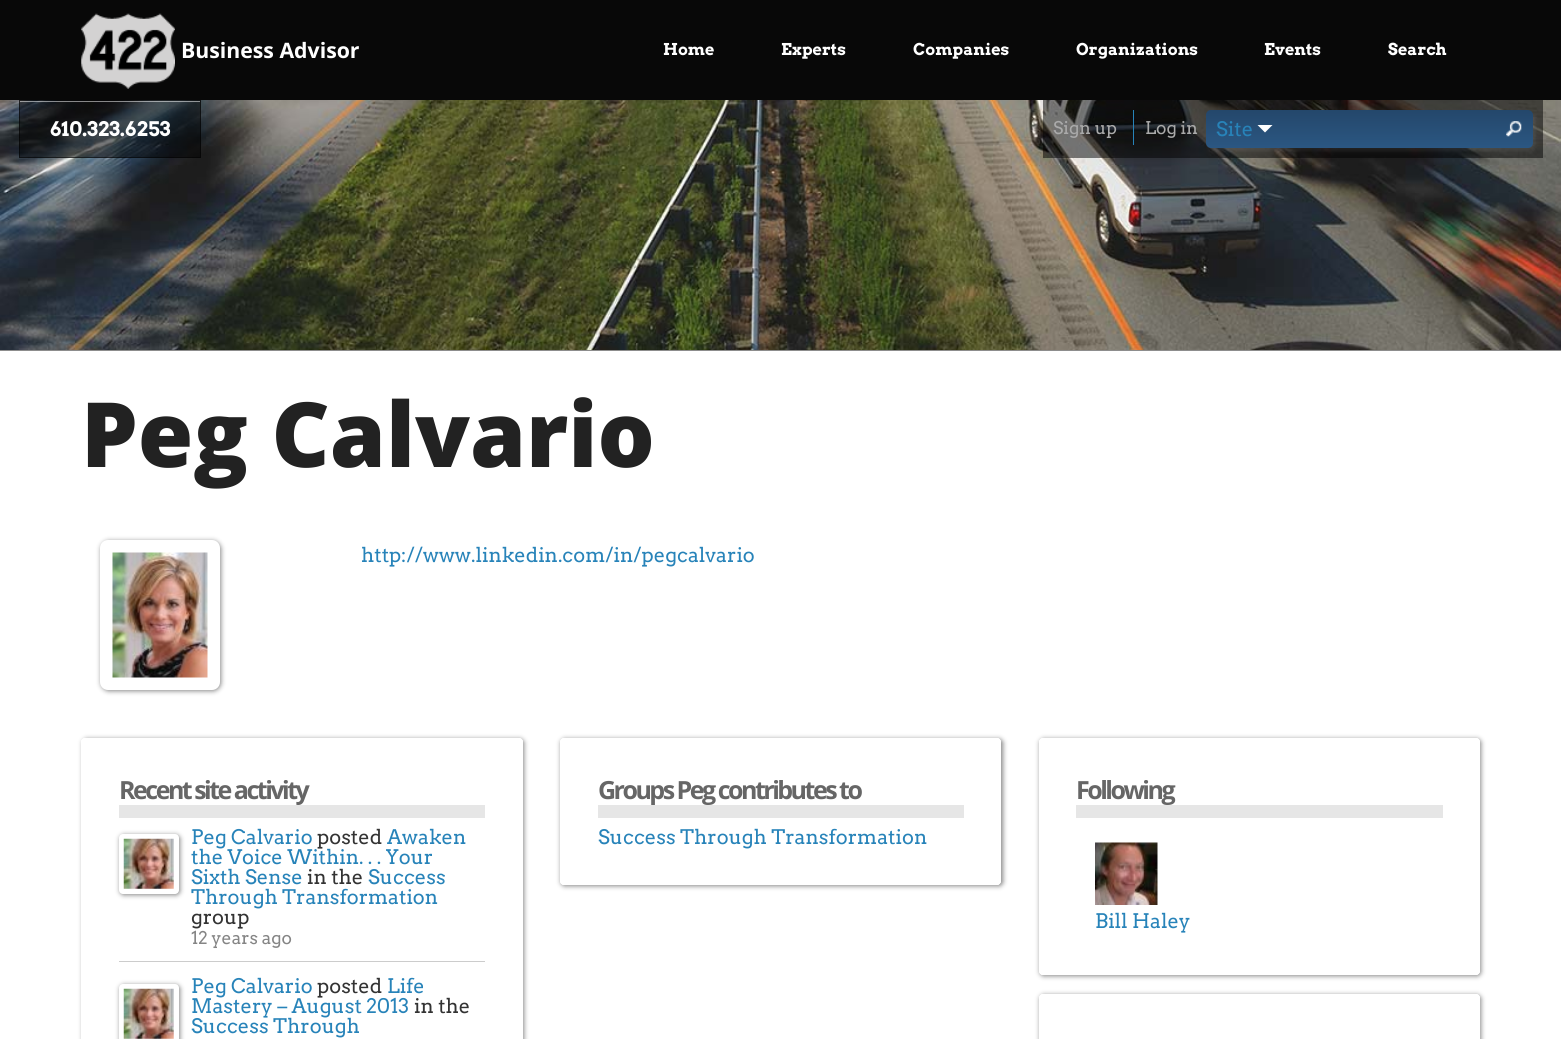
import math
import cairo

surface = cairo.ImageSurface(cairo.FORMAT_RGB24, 1561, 1039)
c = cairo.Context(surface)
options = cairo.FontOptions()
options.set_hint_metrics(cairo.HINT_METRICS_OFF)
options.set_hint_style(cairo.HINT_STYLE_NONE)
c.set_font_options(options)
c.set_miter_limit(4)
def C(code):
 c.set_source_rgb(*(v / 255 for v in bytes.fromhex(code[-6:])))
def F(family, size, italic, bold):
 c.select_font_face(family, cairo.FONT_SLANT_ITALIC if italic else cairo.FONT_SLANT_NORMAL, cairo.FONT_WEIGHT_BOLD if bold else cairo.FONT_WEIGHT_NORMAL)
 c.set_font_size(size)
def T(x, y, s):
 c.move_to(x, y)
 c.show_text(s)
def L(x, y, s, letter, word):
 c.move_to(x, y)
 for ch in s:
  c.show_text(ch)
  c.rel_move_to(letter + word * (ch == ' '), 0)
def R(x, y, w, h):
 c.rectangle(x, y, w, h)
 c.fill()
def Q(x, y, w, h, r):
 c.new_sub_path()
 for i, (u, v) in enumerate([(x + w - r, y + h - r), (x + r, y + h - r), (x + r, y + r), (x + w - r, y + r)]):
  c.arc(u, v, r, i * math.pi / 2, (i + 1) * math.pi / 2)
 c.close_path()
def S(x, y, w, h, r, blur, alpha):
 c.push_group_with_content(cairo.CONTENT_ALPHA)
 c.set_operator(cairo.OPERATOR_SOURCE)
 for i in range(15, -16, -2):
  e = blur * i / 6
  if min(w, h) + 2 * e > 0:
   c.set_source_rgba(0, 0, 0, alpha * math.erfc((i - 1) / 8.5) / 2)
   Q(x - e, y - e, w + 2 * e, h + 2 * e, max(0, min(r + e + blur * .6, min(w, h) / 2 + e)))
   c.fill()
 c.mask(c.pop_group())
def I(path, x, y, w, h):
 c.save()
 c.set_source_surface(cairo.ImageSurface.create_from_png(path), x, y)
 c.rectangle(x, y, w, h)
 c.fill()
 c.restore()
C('ffffff')
c.paint()
C('080808')
R(0,0,1561,100)
I('1.png',81,13,94,76)
F('Open Sans',21.25,0,1)
C('ffffff')
T(181,58,'Business Advisor')
F('Arvo',16.25,0,1)
T(663,55,'Home')
T(781,55,'Experts')
T(913,55,'Companies')
T(1076,55,'Organizations')
T(1264,55,'Events')
T(1388,55,'Search')
I('2.png',0,100,1561,250)
c.set_source_rgba(0,0,0,0.5)
R(19,100,182,58)
c.set_source_rgba(1,1,1,0.5)
R(20,101,180,1)
c.rectangle(19.5,100.5,181,57)
c.set_source_rgba(0,0,0,0.5)
c.set_line_width(1)
c.stroke()
F('Arvo',20,0,1)
C('ffffff')
T(50,136,'610.323.6253')
c.set_source_rgba(0,0,0,0.5)
R(1043,100,500,58)
F('Arvo',17.5,0,0)
C('aaaaaa')
T(1053,134,'Sign up')
C('2783b9')
R(1133,110,1,35)
C('aaaaaa')
T(1145,134,'Log in')
C('ffffff')
S(1209,114,326,37,5,2,.09)
gradient = cairo.LinearGradient(1369,110,1369,148)
gradient.add_color_stop_rgba(0,0.141,0.278,0.42,1)
gradient.add_color_stop_rgba(1,0.169,0.341,0.51,1)
c.set_source(gradient)
Q(1206,110,327,38,5)
c.fill()
F('Arvo',20,0,0)
C('2783b9')
T(1216,136,'Site')
C('ffffff')
c.new_path()
c.move_to(1257.5,125)
c.line_to(1272.5,125)
c.line_to(1265,132.5)
c.close_path()
c.fill()
I('3.png',1506,121,16,16)
C('8d8d8d')
R(0,350,1561,1)
F('Open Sans ExtraBold',90,0,0)
C('222222')
T(81,467,'Peg Calvario')
C('858585')
S(101,541,120,150,8,2.5,1)
C('ffffff')
Q(100,540,120,150,8)
c.fill()
I('4.png',112,552,96,126)
F('Arvo',20,0,0)
C('2783b9')
T(361,562,'http://www.linkedin.com/in/pegcalvario')
c.save()
c.set_fill_rule(cairo.FILL_RULE_EVEN_ODD)
c.new_path()
c.move_to(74,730)
c.line_to(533,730)
c.line_to(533,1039)
c.line_to(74,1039)
c.close_path()
c.move_to(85,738)
c.line_to(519,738)
c.curve_to(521,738,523,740,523,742)
c.line_to(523,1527)
c.curve_to(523,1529,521,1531,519,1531)
c.line_to(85,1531)
c.curve_to(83,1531,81,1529,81,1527)
c.line_to(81,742)
c.curve_to(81,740,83,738,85,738)
c.close_path()
c.clip()
C('858585')
S(83,739,441,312,4,2.5,1)
c.restore()
gradient = cairo.LinearGradient(-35,947,639,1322)
gradient.add_color_stop_rgba(.32,1,1,1,.95)
gradient.add_color_stop_rgba(.65,1,1,1,1)
c.set_source(gradient)
Q(81,738,442,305,4)
c.fill()
C('e6e6e6')
R(119,805,366,13)
F('Open Sans',25,0,1)
C('666666')
L(119,799,'Recent site activity',-2.5,0)
C('cccccc')
R(119,961,366,1)
C('858585')
S(120,835,60,60,4,2.5,1)
C('ffffff')
Q(119,834,60,60,4)
c.fill()
I('5.png',123,838,51,51)
F('Arvo',20,0,0)
C('2783b9')
T(191,844,'Peg Calvario')
C('333333')
T(317,844,'posted')
C('2783b9')
T(387,844,'Awaken')
T(191,864,'the Voice Within. . . Your')
T(191,884,'Sixth Sense')
C('333333')
T(307,884,'in the')
C('2783b9')
T(368,884,'Success')
T(191,904,'Through Transformation')
C('333333')
T(191,924,'group')
F('Arvo',17.5,0,0)
C('858585')
T(191,944,'12 years ago')
C('858585')
S(120,985,60,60,4,2.5,1)
C('ffffff')
Q(119,984,60,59,4)
c.fill()
I('6.png',123,988,51,51)
F('Arvo',20,0,0)
C('2783b9')
T(191,993,'Peg Calvario')
C('333333')
T(317,993,'posted')
C('2783b9')
T(387,993,'Life')
T(191,1013,'Mastery – August 2013')
C('333333')
T(414,1013,'in the')
C('2783b9')
T(191,1033,'Success Through')
c.save()
c.set_fill_rule(cairo.FILL_RULE_EVEN_ODD)
c.new_path()
c.move_to(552,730)
c.line_to(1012,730)
c.line_to(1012,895)
c.line_to(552,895)
c.close_path()
c.move_to(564,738)
c.line_to(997,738)
c.curve_to(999,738,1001,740,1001,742)
c.line_to(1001,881)
c.curve_to(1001,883,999,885,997,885)
c.line_to(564,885)
c.curve_to(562,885,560,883,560,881)
c.line_to(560,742)
c.curve_to(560,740,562,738,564,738)
c.close_path()
c.clip()
C('858585')
S(561,739,442,147,4,2.5,1)
c.restore()
gradient = cairo.LinearGradient(736,679,895,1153)
gradient.add_color_stop_rgba(.5,1,1,1,.95)
gradient.add_color_stop_rgba(1,1,1,1,1)
c.set_source(gradient)
Q(560,738,441,147,4)
c.fill()
C('e6e6e6')
R(598,805,366,13)
F('Open Sans',25,0,1)
C('666666')
L(598,799,'Groups Peg contributes to',-2.5,0)
F('Arvo',20,0,0)
C('2783b9')
T(598,844,'Success Through Transformation')
c.save()
c.set_fill_rule(cairo.FILL_RULE_EVEN_ODD)
c.new_path()
c.move_to(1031,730)
c.line_to(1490,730)
c.line_to(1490,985)
c.line_to(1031,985)
c.close_path()
c.move_to(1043,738)
c.line_to(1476,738)
c.curve_to(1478,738,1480,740,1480,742)
c.line_to(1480,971)
c.curve_to(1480,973,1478,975,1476,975)
c.line_to(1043,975)
c.curve_to(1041,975,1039,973,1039,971)
c.line_to(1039,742)
c.curve_to(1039,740,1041,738,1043,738)
c.close_path()
c.clip()
C('858585')
S(1040,739,441,237,4,2.5,1)
c.restore()
gradient = cairo.LinearGradient(1160,672,1397,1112)
gradient.add_color_stop_rgba(.5,1,1,1,.95)
gradient.add_color_stop_rgba(1,1,1,1,1)
c.set_source(gradient)
Q(1039,738,441,237,4)
c.fill()
C('e6e6e6')
R(1076,805,367,13)
F('Open Sans',25,0,1)
C('666666')
L(1076,799,'Following',-2.5,0)
I('7.png',1095,842,63,63)
F('Arvo',20,0,0)
C('2783b9')
T(1095,928,'Bill Haley')
c.save()
c.set_fill_rule(cairo.FILL_RULE_EVEN_ODD)
c.new_path()
c.move_to(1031,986)
c.line_to(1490,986)
c.line_to(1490,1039)
c.line_to(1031,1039)
c.close_path()
c.move_to(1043,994)
c.line_to(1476,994)
c.curve_to(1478,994,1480,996,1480,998)
c.line_to(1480,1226)
c.curve_to(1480,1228,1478,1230,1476,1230)
c.line_to(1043,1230)
c.curve_to(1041,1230,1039,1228,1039,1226)
c.line_to(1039,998)
c.curve_to(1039,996,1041,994,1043,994)
c.close_path()
c.clip()
C('858585')
S(1040,995,441,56,4,2.5,1)
c.restore()
gradient = cairo.LinearGradient(1161,928,1397,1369)
gradient.add_color_stop_rgba(.5,1,1,1,.95)
gradient.add_color_stop_rgba(1,1,1,1,1)
c.set_source(gradient)
Q(1039,994,441,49,4)
c.fill()
surface.write_to_png('o.png')
